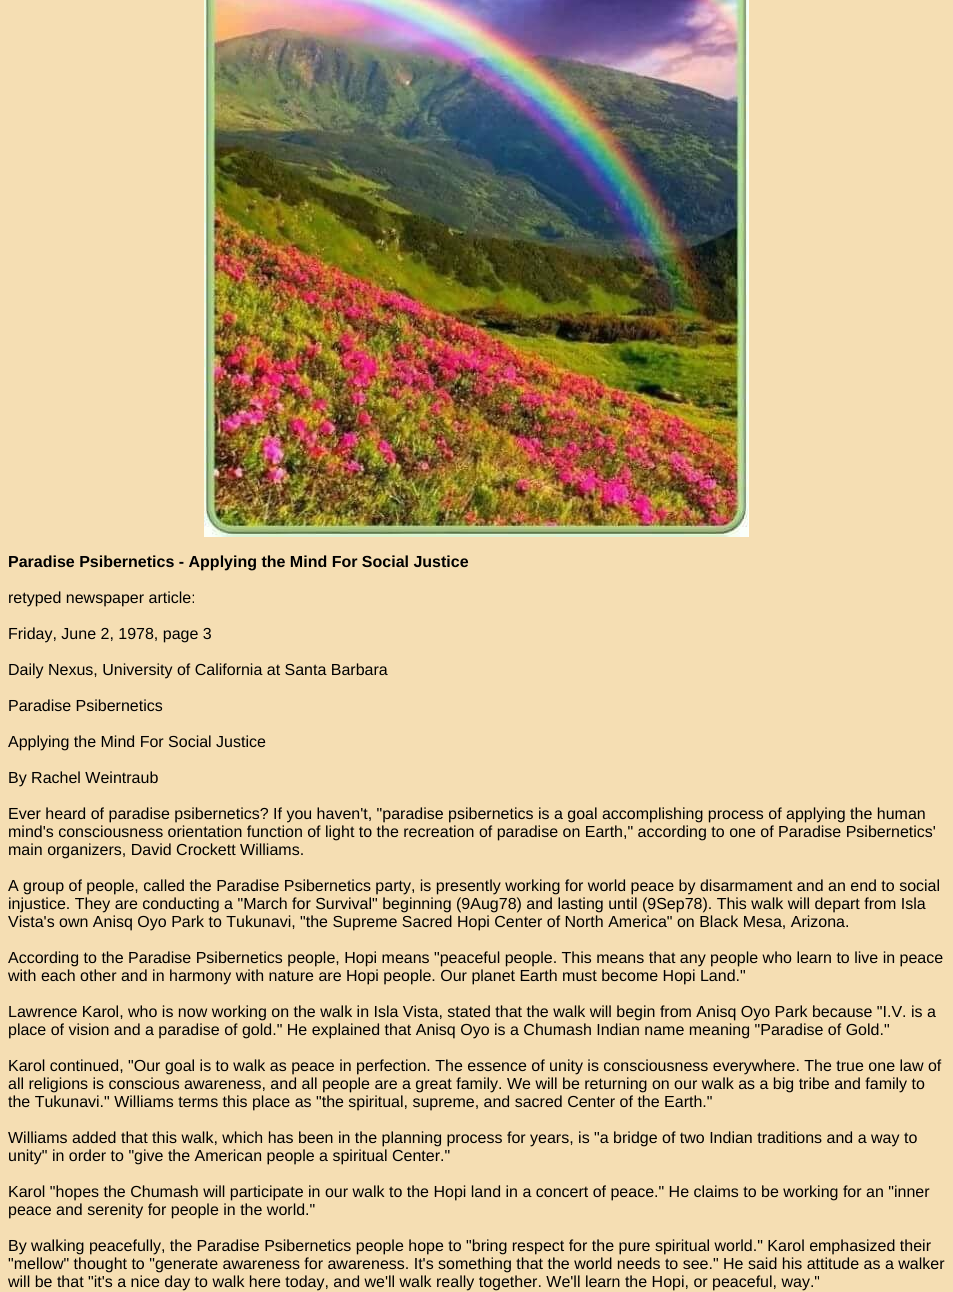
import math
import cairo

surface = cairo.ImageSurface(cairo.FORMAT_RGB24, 953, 1292)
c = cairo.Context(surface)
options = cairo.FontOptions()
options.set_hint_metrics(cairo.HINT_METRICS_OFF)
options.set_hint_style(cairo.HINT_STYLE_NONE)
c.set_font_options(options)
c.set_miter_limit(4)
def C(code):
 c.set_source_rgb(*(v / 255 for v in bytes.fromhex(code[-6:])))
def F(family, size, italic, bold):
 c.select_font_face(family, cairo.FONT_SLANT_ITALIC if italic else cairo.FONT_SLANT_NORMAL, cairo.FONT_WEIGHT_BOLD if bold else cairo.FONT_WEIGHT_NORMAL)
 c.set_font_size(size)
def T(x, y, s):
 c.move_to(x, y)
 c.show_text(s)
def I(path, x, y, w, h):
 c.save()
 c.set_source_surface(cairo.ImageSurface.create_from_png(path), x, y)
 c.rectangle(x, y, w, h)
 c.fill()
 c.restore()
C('f5deb3')
c.paint()
I('1.png',204,0,545,537)
F('Liberation Sans',16,0,1)
C('000000')
T(8,567,'Paradise Psibernetics - Applying the Mind For Social Justice')
F('Liberation Sans',16,0,0)
T(8,603,'retyped newspaper article:')
T(8,639,'Friday, June 2, 1978, page 3')
T(8,675,'Daily Nexus, University of California at Santa Barbara')
T(8,711,'Paradise Psibernetics')
T(8,747,'Applying the Mind For Social Justice')
T(8,783,'By Rachel Weintraub')
T(8,819,'Ever heard of paradise psibernetics? If you haven\'t, "paradise psibernetics is a goal accomplishing process of applying the human')
T(8,837,'mind\'s consciousness orientation function of light to the recreation of paradise on Earth," according to one of Paradise Psibernetics\'')
T(8,855,'main organizers, David Crockett Williams.')
T(8,891,'A group of people, called the Paradise Psibernetics party, is presently working for world peace by disarmament and an end to social')
T(8,909,'injustice. They are conducting a "March for Survival" beginning (9Aug78) and lasting until (9Sep78). This walk will depart from Isla')
T(8,927,'Vista\'s own Anisq Oyo Park to Tukunavi, "the Supreme Sacred Hopi Center of North America" on Black Mesa, Arizona.')
T(8,963,'According to the Paradise Psibernetics people, Hopi means "peaceful people. This means that any people who learn to live in peace')
T(8,981,'with each other and in harmony with nature are Hopi people. Our planet Earth must become Hopi Land."')
T(8,1017,'Lawrence Karol, who is now working on the walk in Isla Vista, stated that the walk will begin from Anisq Oyo Park because "I.V. is a')
T(8,1035,'place of vision and a paradise of gold." He explained that Anisq Oyo is a Chumash Indian name meaning "Paradise of Gold."')
T(8,1071,'Karol continued, "Our goal is to walk as peace in perfection. The essence of unity is consciousness everywhere. The true one law of')
T(8,1089,'all religions is conscious awareness, and all people are a great family. We will be returning on our walk as a big tribe and family to')
T(8,1107,'the Tukunavi." Williams terms this place as "the spiritual, supreme, and sacred Center of the Earth."')
T(8,1143,'Williams added that this walk, which has been in the planning process for years, is "a bridge of two Indian traditions and a way to')
T(8,1161,'unity" in order to "give the American people a spiritual Center."')
T(8,1197,'Karol "hopes the Chumash will participate in our walk to the Hopi land in a concert of peace." He claims to be working for an "inner')
T(8,1215,'peace and serenity for people in the world."')
T(8,1251,'By walking peacefully, the Paradise Psibernetics people hope to "bring respect for the pure spiritual world." Karol emphasized their')
T(8,1269,'"mellow" thought to "generate awareness for awareness. It\'s something that the world needs to see." He said his attitude as a walker')
T(8,1287,'will be that "it\'s a nice day to walk here today, and we\'ll walk really together. We\'ll learn the Hopi, or peaceful, way."')
surface.write_to_png('o.png')
